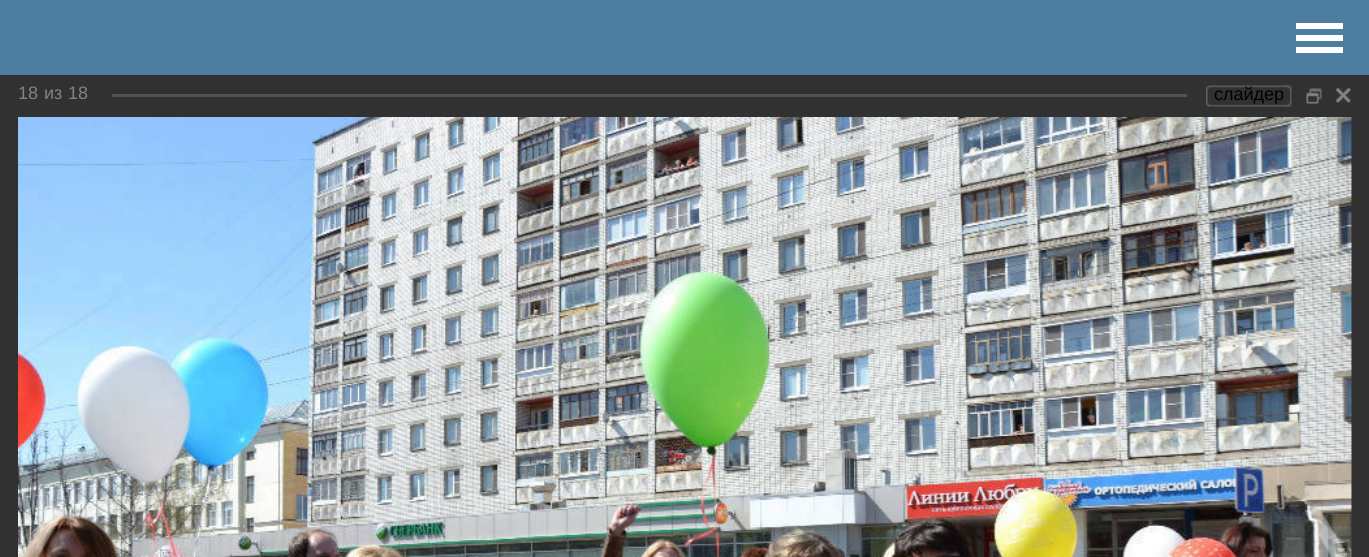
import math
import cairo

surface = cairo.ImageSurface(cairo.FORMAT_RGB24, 1369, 557)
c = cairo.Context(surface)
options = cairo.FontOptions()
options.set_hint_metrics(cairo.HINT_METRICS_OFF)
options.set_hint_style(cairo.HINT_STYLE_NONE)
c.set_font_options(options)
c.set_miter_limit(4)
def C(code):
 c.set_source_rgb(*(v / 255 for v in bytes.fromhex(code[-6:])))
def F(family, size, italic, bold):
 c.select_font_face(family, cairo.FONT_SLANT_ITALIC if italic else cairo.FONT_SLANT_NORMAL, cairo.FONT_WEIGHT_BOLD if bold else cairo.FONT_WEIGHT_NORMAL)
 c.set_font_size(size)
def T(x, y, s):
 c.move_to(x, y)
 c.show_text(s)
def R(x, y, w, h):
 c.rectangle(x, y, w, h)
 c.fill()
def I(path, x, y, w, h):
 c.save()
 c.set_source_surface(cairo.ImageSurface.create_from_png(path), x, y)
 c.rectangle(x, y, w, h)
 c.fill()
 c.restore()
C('313131')
c.paint()
C('4d7e9f')
R(0,0,1369,75)
C('ffffff')
R(1296,35,47,6)
R(1296,23,47,6)
R(1296,47,47,6)
F('Liberation Sans',18,0,0)
C('838383')
T(18,99,'18')
T(44,99,'из')
T(68,99,'18')
C('535353')
R(112,94,1075,3)
I('1.png',1206,85,86,22)
C('000000')
T(1214,100,'слайдер')
I('2.png',1284,85,8,22)
I('3.png',1306,88,16,16)
I('4.png',1336,88,15,15)
I('5.png',18,117,1334,440)
I('6.png',22,510,42,47)
I('7.png',1305,510,42,47)
surface.write_to_png('o.png')
